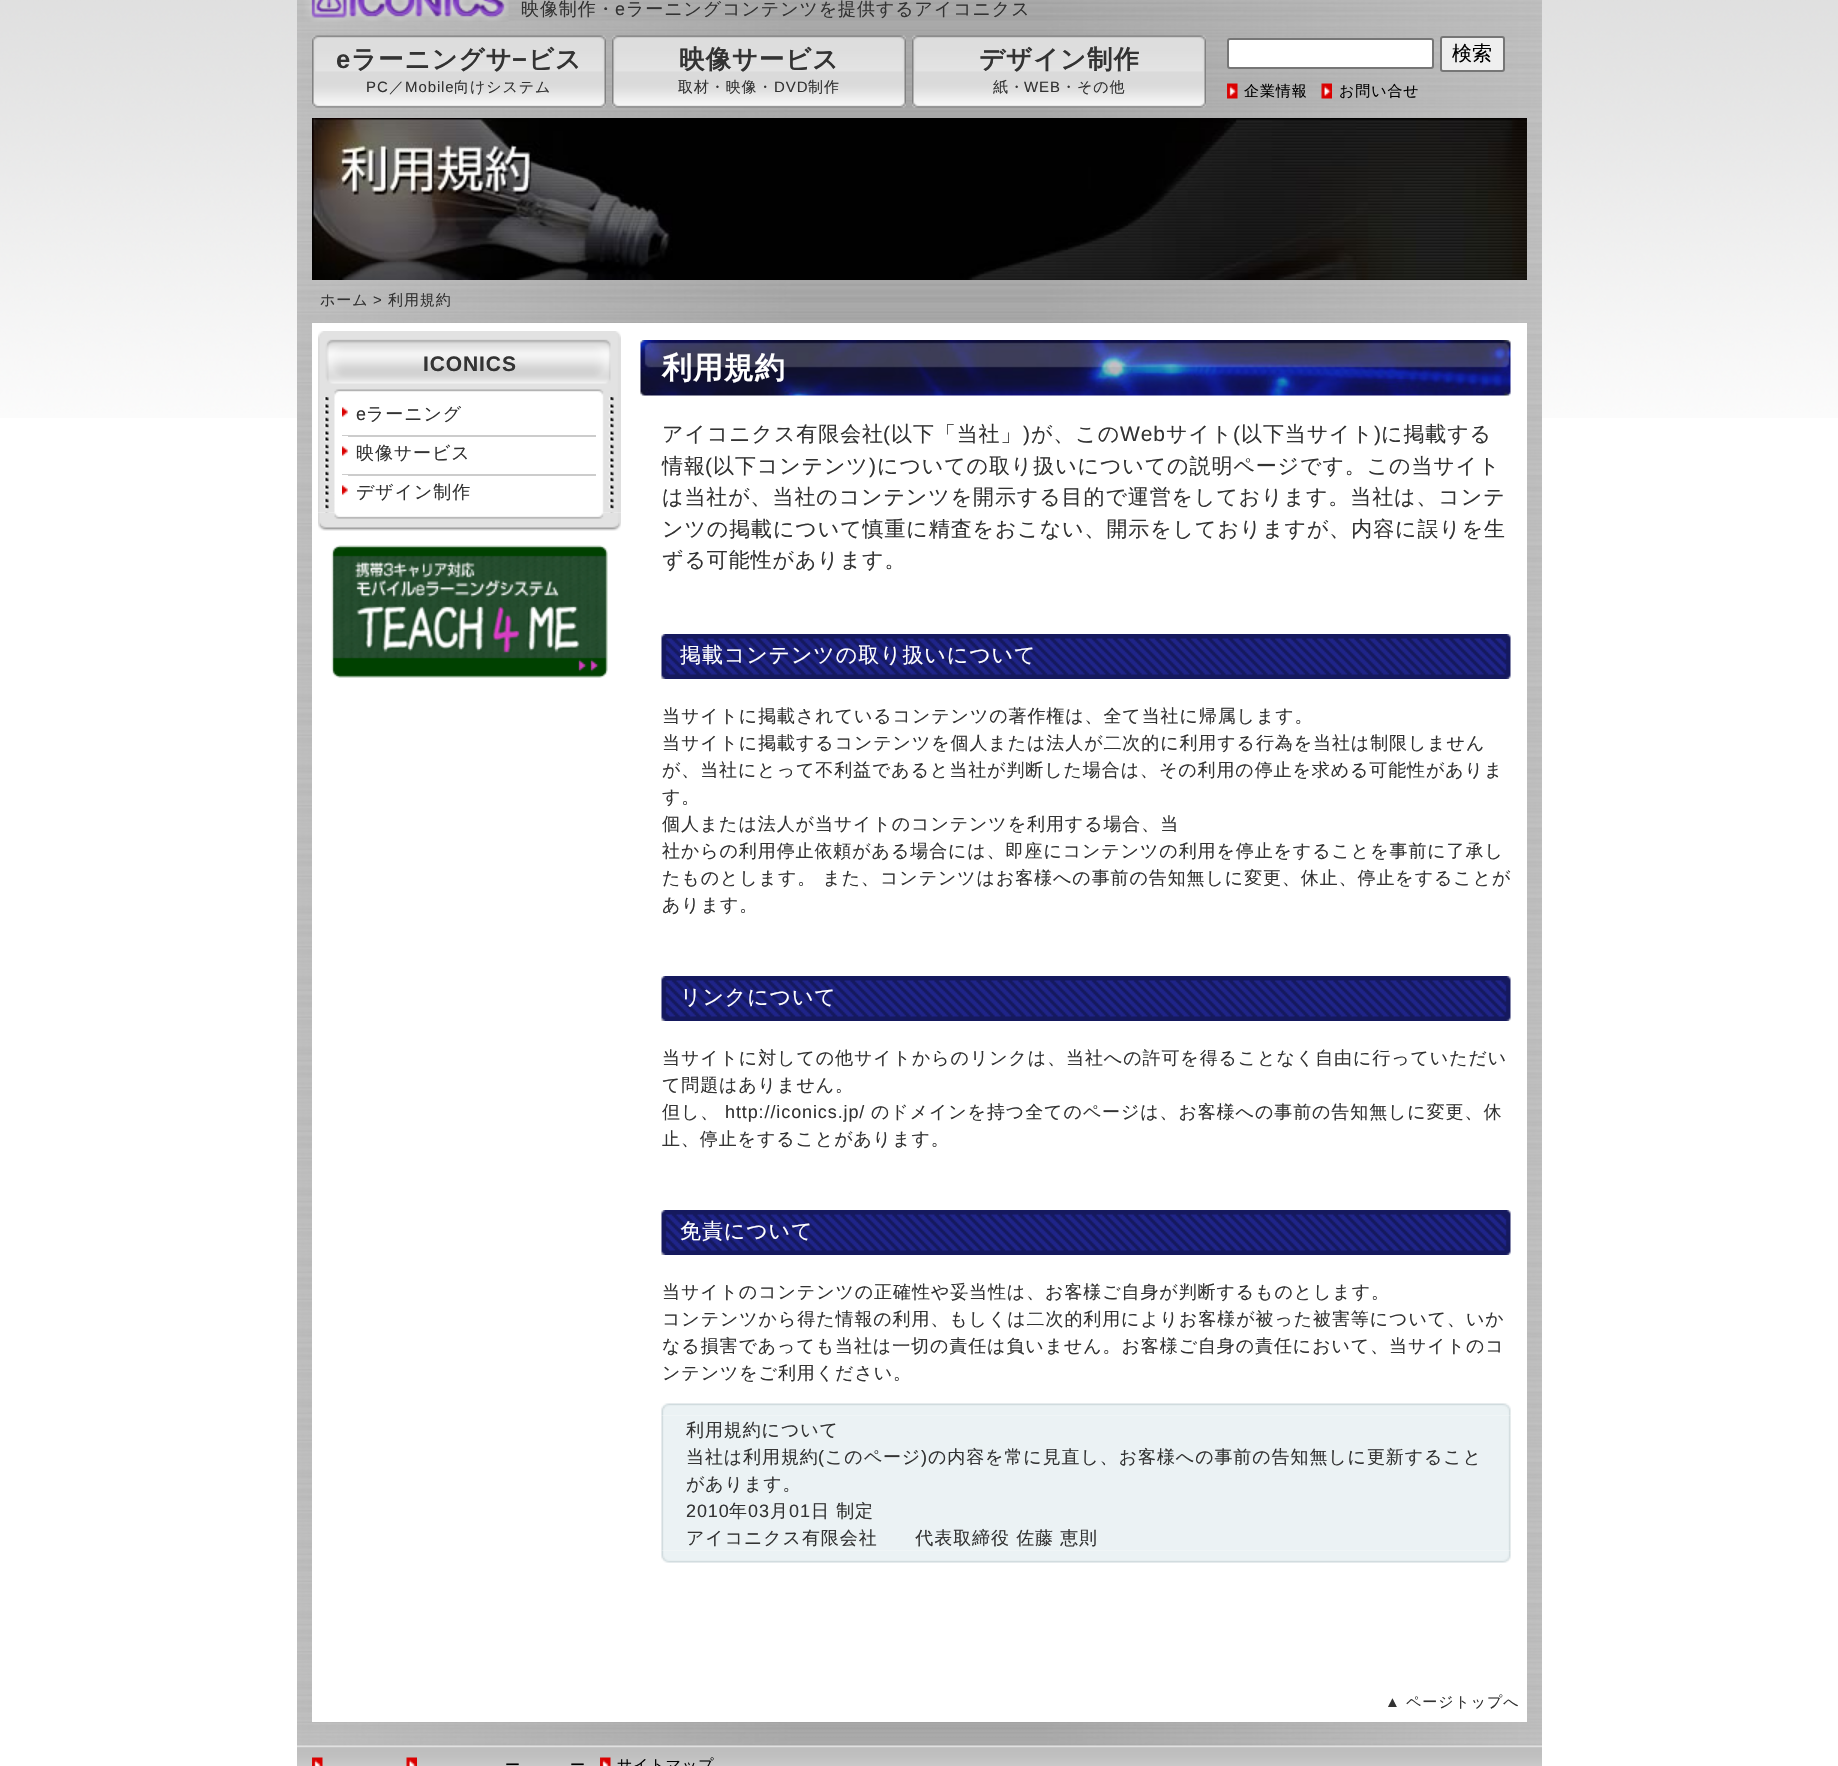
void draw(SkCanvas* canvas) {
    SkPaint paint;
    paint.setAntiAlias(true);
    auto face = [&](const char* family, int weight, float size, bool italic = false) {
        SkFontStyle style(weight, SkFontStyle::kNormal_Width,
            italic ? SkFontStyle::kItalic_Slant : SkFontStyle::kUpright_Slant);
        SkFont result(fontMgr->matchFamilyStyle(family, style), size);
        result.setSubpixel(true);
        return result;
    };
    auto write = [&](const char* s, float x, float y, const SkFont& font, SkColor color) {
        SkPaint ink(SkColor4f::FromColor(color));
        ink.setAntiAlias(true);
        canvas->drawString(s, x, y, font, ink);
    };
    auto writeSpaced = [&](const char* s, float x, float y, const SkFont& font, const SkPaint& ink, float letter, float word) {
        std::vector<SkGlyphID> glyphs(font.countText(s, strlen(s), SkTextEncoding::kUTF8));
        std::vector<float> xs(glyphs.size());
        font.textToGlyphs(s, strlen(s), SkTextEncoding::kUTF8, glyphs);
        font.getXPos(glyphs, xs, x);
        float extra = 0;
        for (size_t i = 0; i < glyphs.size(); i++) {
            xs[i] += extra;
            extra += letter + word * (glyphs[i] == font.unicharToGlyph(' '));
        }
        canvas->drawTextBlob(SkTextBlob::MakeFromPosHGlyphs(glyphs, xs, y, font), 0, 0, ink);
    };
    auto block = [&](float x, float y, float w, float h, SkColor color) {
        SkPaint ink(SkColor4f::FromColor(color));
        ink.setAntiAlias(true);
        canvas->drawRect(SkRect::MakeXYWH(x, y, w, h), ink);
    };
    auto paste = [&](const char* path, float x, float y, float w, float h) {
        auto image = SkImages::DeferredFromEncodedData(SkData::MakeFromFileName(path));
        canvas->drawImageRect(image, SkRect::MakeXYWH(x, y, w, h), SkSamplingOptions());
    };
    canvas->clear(SK_ColorWHITE);
    paste("pic1.png", 0, 0, 1838, 418);
    paste("pic2.png", 297, 0, 1245, 1746);
    paste("pic3.png", 297, 0, 212, 22);
    auto kFont1 = face("WenQuanYi Zen Hei", 500, 18);
    paint.setColor(SkColorSetRGB(51, 51, 51));
    writeSpaced("映像制作・", 521, 15, kFont1, paint, 0.9f, 0);
    auto kFont2 = face("Liberation Sans", 400, 18);
    writeSpaced("e", 615, 15, kFont2, paint, 0.9f, 0);
    writeSpaced("ラーニングコンテンツを提供するアイコニクス", 626, 15, kFont1, paint, 0.9f, 0);
    paste("pic4.png", 312, 35, 294, 73);
    auto kFont3 = face("Liberation Sans", 700, 25.5f);
    writeSpaced("e", 336, 68, kFont3, paint, 0.9f, 0);
    auto kFont4 = face("WenQuanYi Zen Hei", 700, 25.5f);
    writeSpaced("ラーニングサ", 351, 68, kFont4, paint, 0.9f, 0);
    writeSpaced("−", 512, 68, kFont3, paint, 0.9f, 0);
    writeSpaced("ビス", 528, 68, kFont4, paint, 0.9f, 0);
    auto kFont5 = face("Liberation Sans", 400, 15);
    writeSpaced("PC", 366, 92, kFont5, paint, 0.9f, 0);
    auto kFont6 = face("WenQuanYi Zen Hei", 500, 15);
    writeSpaced("／", 389, 92, kFont6, paint, 0.9f, 0);
    writeSpaced("Mobile", 405, 92, kFont5, paint, 0.9f, 0);
    writeSpaced("向けシステム", 454, 92, kFont6, paint, 0.9f, 0);
    paste("pic5.png", 612, 35, 294, 73);
    writeSpaced("映像サービス", 679, 68, kFont4, paint, 0.9f, 0);
    writeSpaced("取材・映像・", 678, 92, kFont6, paint, 0.9f, 0);
    writeSpaced("DVD", 774, 92, kFont5, paint, 0.9f, 0);
    writeSpaced("制作", 808, 92, kFont6, paint, 0.9f, 0);
    paste("pic6.png", 912, 35, 294, 73);
    writeSpaced("デザイン制作", 979, 68, kFont4, paint, 0.9f, 0);
    writeSpaced("紙・", 993, 92, kFont6, paint, 0.9f, 0);
    writeSpaced("WEB", 1024, 92, kFont5, paint, 0.9f, 0);
    writeSpaced("・その他", 1061, 92, kFont6, paint, 0.9f, 0);
    paint.setColor(SK_ColorWHITE);
    canvas->drawRoundRect(SkRect::MakeXYWH(1228, 39, 205, 29), 2, 2, paint);
    paint.setStyle(SkPaint::kStroke_Style);
    paint.setStrokeWidth(2);
    paint.setColor(SkColorSetRGB(118, 118, 118));
    canvas->drawRoundRect(SkRect::MakeXYWH(1228, 39, 205, 29), 2, 2, paint);
    paint.setStyle(SkPaint::kFill_Style);
    paint.setColor(SkColorSetRGB(239, 239, 239));
    canvas->drawRoundRect(SkRect::MakeXYWH(1441, 37, 63, 34), 2, 2, paint);
    paint.setStyle(SkPaint::kStroke_Style);
    paint.setColor(SkColorSetRGB(118, 118, 118));
    canvas->drawRoundRect(SkRect::MakeXYWH(1441, 37, 63, 34), 2, 2, paint);
    auto kFont7 = face("WenQuanYi Zen Hei", 500, 20);
    write("検索", 1452, 60, kFont7, SK_ColorBLACK);
    paste("pic7.png", 1227, 83, 11, 16);
    paint.setStyle(SkPaint::kFill_Style);
    paint.setColor(SK_ColorBLACK);
    writeSpaced("企業情報", 1244, 96, kFont6, paint, 0.9f, 0);
    paste("pic8.png", 1321, 83, 11, 16);
    writeSpaced("お問い合せ", 1339, 96, kFont6, paint, 0.9f, 0);
    paste("pic9.png", 312, 118, 1215, 162);
    paint.setColor(SkColorSetRGB(51, 51, 51));
    writeSpaced("ホーム", 320, 305, kFont6, paint, 0.9f, 0);
    writeSpaced(">", 373, 305, kFont5, paint, 0.9f, 0);
    writeSpaced("利用規約", 388, 305, kFont6, paint, 0.9f, 0);
    block(312, 323, 1215, 1399, SK_ColorWHITE);
    paste("pic10.png", 318, 331, 303, 66);
    auto kFont8 = face("Liberation Sans", 700, 21);
    writeSpaced("ICONICS", 423, 371, kFont8, paint, 0.9f, 0);
    paste("pic11.png", 318, 397, 303, 116);
    paste("pic12.png", 342, 406, 6, 12);
    block(342, 435, 254, 2, SkColorSetRGB(204, 204, 204));
    writeSpaced("e", 356, 420, kFont2, paint, 0.9f, 0);
    writeSpaced("ラーニング", 366, 420, kFont1, paint, 0.9f, 0);
    paste("pic13.png", 342, 436, 6, 21);
    block(342, 474, 254, 2, SkColorSetRGB(204, 204, 204));
    writeSpaced("映像サービス", 356, 459, kFont1, paint, 0.9f, 0);
    paste("pic13.png", 342, 475, 6, 21);
    writeSpaced("デザイン制作", 356, 498, kFont1, paint, 0.9f, 0);
    paste("pic14.png", 318, 512, 303, 19);
    paste("pic15.png", 331, 545, 277, 133);
    paste("pic16.png", 640, 340, 871, 56);
    auto kFont9 = face("WenQuanYi Zen Hei", 700, 30);
    paint.setColor(SK_ColorWHITE);
    writeSpaced("利用規約", 662, 378, kFont9, paint, 0.9f, 0);
    auto kFont10 = face("WenQuanYi Zen Hei", 500, 21);
    paint.setColor(SkColorSetRGB(51, 51, 51));
    writeSpaced("アイコニクス有限会社", 662, 441, kFont10, paint, 0.9f, 0);
    auto kFont11 = face("Liberation Sans", 400, 21);
    writeSpaced("(", 883, 441, kFont11, paint, 0.9f, 0);
    writeSpaced("以下「当社」", 891, 441, kFont10, paint, 0.9f, 0);
    writeSpaced(")", 1023, 441, kFont11, paint, 0.9f, 0);
    writeSpaced("が、この", 1031, 441, kFont10, paint, 0.9f, 0);
    writeSpaced("Web", 1120, 441, kFont11, paint, 0.9f, 0);
    writeSpaced("サイト", 1166, 441, kFont10, paint, 0.9f, 0);
    writeSpaced("(", 1233, 441, kFont11, paint, 0.9f, 0);
    writeSpaced("以下当サイト", 1241, 441, kFont10, paint, 0.9f, 0);
    writeSpaced(")", 1374, 441, kFont11, paint, 0.9f, 0);
    writeSpaced("に掲載する", 1381, 441, kFont10, paint, 0.9f, 0);
    writeSpaced("情報", 662, 473, kFont10, paint, 0.9f, 0);
    writeSpaced("(", 705, 473, kFont11, paint, 0.9f, 0);
    writeSpaced("以下コンテンツ", 713, 473, kFont10, paint, 0.9f, 0);
    writeSpaced(")", 869, 473, kFont11, paint, 0.9f, 0);
    writeSpaced("についての取り扱いについての説明ページです。この当サイト", 877, 473, kFont10, paint, 0.9f, 0);
    writeSpaced("は当社が、当社のコンテンツを開示する目的で運営をしております。当社は、コンテ", 662, 504, kFont10, paint, 0.9f, 0);
    writeSpaced("ンツの掲載について慎重に精査をおこない、開示をしておりますが、内容に誤りを生", 662, 536, kFont10, paint, 0.9f, 0);
    writeSpaced("ずる可能性があります。", 662, 567, kFont10, paint, 0.9f, 0);
    paste("pic17.png", 661, 634, 850, 45);
    paint.setColor(SK_ColorWHITE);
    writeSpaced("掲載コンテンツの取り扱いについて", 680, 662, kFont10, paint, 0.9f, 0);
    paint.setColor(SkColorSetRGB(51, 51, 51));
    writeSpaced("当サイトに掲載されているコンテンツの著作権は、全て当社に帰属します。", 662, 722, kFont1, paint, 0.9f, 0);
    writeSpaced("当サイトに掲載するコンテンツを個人または法人が二次的に利用する行為を当社は制限しません", 662, 749, kFont1, paint, 0.9f, 0);
    writeSpaced("が、当社にとって不利益であると当社が判断した場合は、その利用の停止を求める可能性がありま", 662, 776, kFont1, paint, 0.9f, 0);
    writeSpaced("す。", 662, 803, kFont1, paint, 0.9f, 0);
    writeSpaced("個人または法人が当サイトのコンテンツを利用する場合、当", 662, 830, kFont1, paint, 0.9f, 0);
    writeSpaced("社からの利用停止依頼がある場合には、即座にコンテンツの利用を停止をすることを事前に了承し", 662, 857, kFont1, paint, 0.9f, 0);
    writeSpaced("たものとします。 また、コンテンツはお客様への事前の告知無しに変更、休止、停止をすることが", 662, 884, kFont1, paint, 0.9f, 0);
    writeSpaced("あります。", 662, 911, kFont1, paint, 0.9f, 0);
    paste("pic17.png", 661, 976, 850, 45);
    paint.setColor(SK_ColorWHITE);
    writeSpaced("リンクについて", 680, 1004, kFont10, paint, 0.9f, 0);
    paint.setColor(SkColorSetRGB(51, 51, 51));
    writeSpaced("当サイトに対しての他サイトからのリンクは、当社への許可を得ることなく自由に行っていただい", 662, 1064, kFont1, paint, 0.9f, 0);
    writeSpaced("て問題はありません。", 662, 1091, kFont1, paint, 0.9f, 0);
    writeSpaced("但し、", 662, 1118, kFont1, paint, 0.9f, 0);
    writeSpaced("http://iconics.jp/", 725, 1118, kFont2, paint, 0.9f, 0);
    writeSpaced("のドメインを持つ全てのページは、お客様への事前の告知無しに変更、休", 871, 1118, kFont1, paint, 0.9f, 0);
    writeSpaced("止、停止をすることがあります。", 662, 1145, kFont1, paint, 0.9f, 0);
    paste("pic17.png", 661, 1210, 850, 45);
    paint.setColor(SK_ColorWHITE);
    writeSpaced("免責について", 680, 1238, kFont10, paint, 0.9f, 0);
    paint.setColor(SkColorSetRGB(51, 51, 51));
    writeSpaced("当サイトのコンテンツの正確性や妥当性は、お客様ご自身が判断するものとします。", 662, 1298, kFont1, paint, 0.9f, 0);
    writeSpaced("コンテンツから得た情報の利用、もしくは二次的利用によりお客様が被った被害等について、いか", 662, 1325, kFont1, paint, 0.9f, 0);
    writeSpaced("なる損害であっても当社は一切の責任は負いません。お客様ご自身の責任において、当サイトのコ", 662, 1352, kFont1, paint, 0.9f, 0);
    writeSpaced("ンテンツをご利用ください。", 662, 1379, kFont1, paint, 0.9f, 0);
    paste("pic18.png", 661, 1550, 850, 13);
    paste("pic19.png", 661, 1403, 850, 13);
    paste("pic20.png", 661, 1415, 850, 136);
    writeSpaced("利用規約について", 686, 1436, kFont1, paint, 0.9f, 0);
    writeSpaced("当社は利用規約", 686, 1463, kFont1, paint, 0.9f, 0);
    writeSpaced("(", 818, 1463, kFont2, paint, 0.9f, 0);
    writeSpaced("このページ", 825, 1463, kFont1, paint, 0.9f, 0);
    writeSpaced(")", 921, 1463, kFont2, paint, 0.9f, 0);
    writeSpaced("の内容を常に見直し、お客様への事前の告知無しに更新すること", 928, 1463, kFont1, paint, 0.9f, 0);
    writeSpaced("があります。", 686, 1490, kFont1, paint, 0.9f, 0);
    writeSpaced("2010", 686, 1517, kFont2, paint, 0.9f, 0);
    writeSpaced("年", 729, 1517, kFont1, paint, 0.9f, 0);
    writeSpaced("03", 748, 1517, kFont2, paint, 0.9f, 0);
    writeSpaced("月", 770, 1517, kFont1, paint, 0.9f, 0);
    writeSpaced("01", 789, 1517, kFont2, paint, 0.9f, 0);
    writeSpaced("日 制定", 811, 1517, kFont1, paint, 0.9f, 0);
    writeSpaced("アイコニクス有限会社　　代表取締役 佐藤 恵則", 686, 1544, kFont1, paint, 0.9f, 0);
    writeSpaced("▲", 1385, 1707, kFont5, paint, 0.9f, 0);
    writeSpaced("ページトップへ", 1406, 1707, kFont6, paint, 0.9f, 0);
    paste("pic21.png", 297, 1745, 1245, 21);
    paste("pic22.png", 312, 1757, 11, 9);
    paste("pic23.png", 406, 1757, 11, 9);
    paint.setColor(SK_ColorBLACK);
    writeSpaced("ー", 505, 1770, kFont6, paint, 0.9f, 0);
    writeSpaced("ー", 570, 1770, kFont6, paint, 0.9f, 0);
    paste("pic22.png", 600, 1757, 11, 9);
    writeSpaced("サイトマップ", 617, 1770, kFont6, paint, 0.9f, 0);
}
